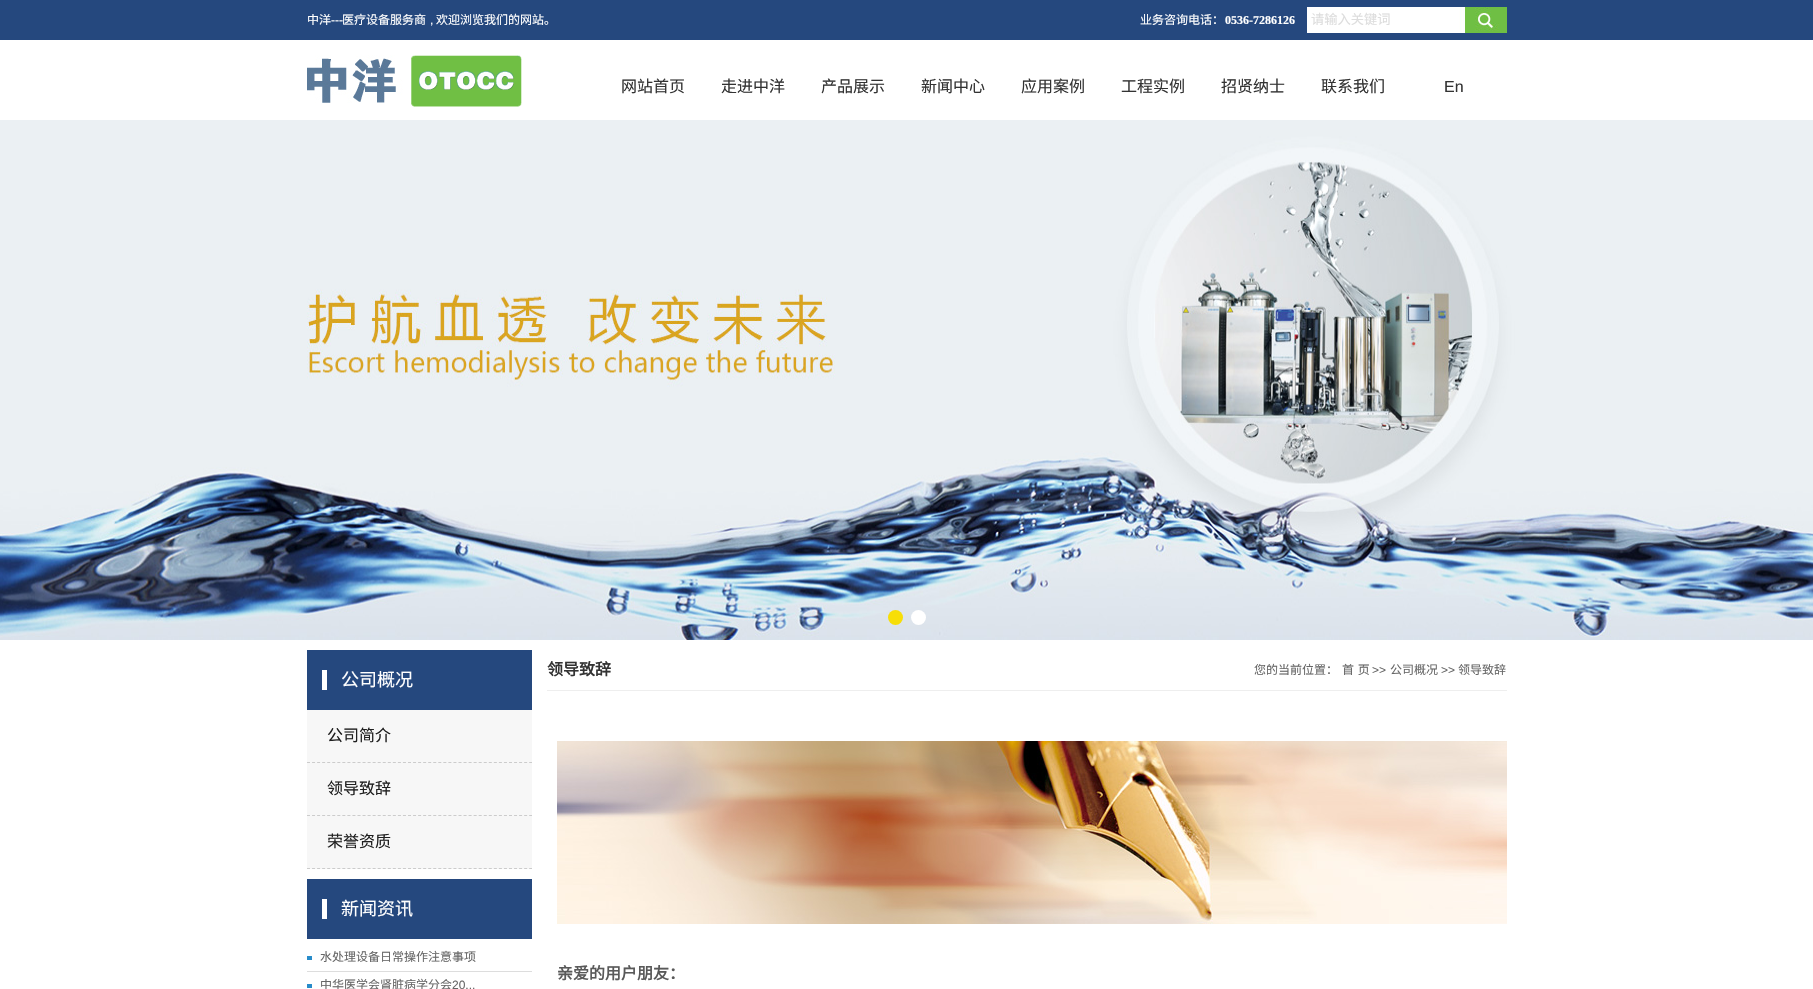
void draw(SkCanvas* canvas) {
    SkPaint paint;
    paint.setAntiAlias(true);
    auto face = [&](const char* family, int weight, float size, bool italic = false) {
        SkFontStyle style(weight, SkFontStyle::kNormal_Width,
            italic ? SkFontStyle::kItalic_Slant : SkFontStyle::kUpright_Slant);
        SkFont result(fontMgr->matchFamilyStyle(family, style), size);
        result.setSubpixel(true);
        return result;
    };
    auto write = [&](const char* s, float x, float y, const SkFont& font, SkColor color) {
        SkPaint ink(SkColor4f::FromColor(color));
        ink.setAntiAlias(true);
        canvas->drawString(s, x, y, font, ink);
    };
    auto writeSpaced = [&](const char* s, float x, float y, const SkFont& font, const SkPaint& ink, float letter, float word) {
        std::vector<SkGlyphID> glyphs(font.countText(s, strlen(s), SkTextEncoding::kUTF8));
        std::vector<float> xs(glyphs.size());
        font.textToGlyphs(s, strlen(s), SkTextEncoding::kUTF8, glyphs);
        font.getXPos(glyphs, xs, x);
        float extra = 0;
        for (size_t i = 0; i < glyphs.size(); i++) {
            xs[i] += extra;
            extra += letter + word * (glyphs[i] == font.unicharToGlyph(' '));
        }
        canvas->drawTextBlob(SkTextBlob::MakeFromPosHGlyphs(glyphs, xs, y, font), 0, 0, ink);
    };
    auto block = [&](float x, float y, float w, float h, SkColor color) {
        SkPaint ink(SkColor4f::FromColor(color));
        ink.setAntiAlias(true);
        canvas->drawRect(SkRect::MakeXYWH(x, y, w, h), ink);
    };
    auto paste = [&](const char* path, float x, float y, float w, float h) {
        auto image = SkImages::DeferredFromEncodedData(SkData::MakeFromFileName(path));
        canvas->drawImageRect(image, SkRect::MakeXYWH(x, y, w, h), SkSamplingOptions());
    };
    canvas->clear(SK_ColorWHITE);
    block(0, 0, 1813, 40, SkColorSetRGB(37, 72, 126));
    auto kFont1 = face("Noto Sans CJK SC", 400, 12);
    write("中洋", 307, 24, kFont1, SK_ColorWHITE);
    auto kFont2 = face("Liberation Sans", 400, 12);
    write("---", 331, 24, kFont2, SK_ColorWHITE);
    write("医疗设备服务商", 342, 24, kFont1, SK_ColorWHITE);
    write("欢迎浏览我们的网站。", 436, 24, kFont1, SK_ColorWHITE);
    write(",", 430, 24, kFont2, SK_ColorWHITE);
    write("业务咨询电话：", 1140, 24, kFont1, SK_ColorWHITE);
    auto kFont3 = face("Liberation Serif", 700, 12);
    write("0536-7286126", 1225, 24, kFont3, SK_ColorWHITE);
    paste("pic1.png", 1307, 7, 200, 26);
    auto kFont4 = face("Noto Sans CJK SC", 400, 13.25f);
    write("请输入关键词", 1311, 24, kFont4, SkColorSetRGB(221, 221, 221));
    paste("pic2.png", 307, 55, 215, 52);
    auto kFont5 = face("Noto Sans CJK SC", 400, 16);
    write("网站首页", 621, 92, kFont5, SkColorSetRGB(51, 51, 51));
    write("走进中洋", 721, 92, kFont5, SkColorSetRGB(51, 51, 51));
    write("产品展示", 821, 92, kFont5, SkColorSetRGB(51, 51, 51));
    write("新闻中心", 921, 92, kFont5, SkColorSetRGB(51, 51, 51));
    write("应用案例", 1021, 92, kFont5, SkColorSetRGB(51, 51, 51));
    write("工程实例", 1121, 92, kFont5, SkColorSetRGB(51, 51, 51));
    write("招贤纳士", 1221, 92, kFont5, SkColorSetRGB(51, 51, 51));
    write("联系我们", 1321, 92, kFont5, SkColorSetRGB(51, 51, 51));
    auto kFont6 = face("Liberation Sans", 400, 16);
    write("En", 1444, 92, kFont6, SkColorSetRGB(51, 51, 51));
    paste("pic3.png", 0, 120, 1813, 520);
    paint.setColor(SkColorSetRGB(247, 222, 7));
    canvas->drawCircle(895.5f, 617.5f, 7.5f, paint);
    paint.setColor(SK_ColorWHITE);
    canvas->drawCircle(918.5f, 617.5f, 7.5f, paint);
    block(307, 650, 225, 60, SkColorSetRGB(37, 72, 126));
    block(322, 670, 5, 20, SK_ColorWHITE);
    auto kFont7 = face("Noto Sans CJK SC", 400, 18);
    write("公司概况", 341, 686, kFont7, SK_ColorWHITE);
    block(307, 710, 225, 159, SkColorSetRGB(247, 247, 247));
    paint.setStyle(SkPaint::kStroke_Style);
    paint.setStrokeWidth(1);
    paint.setColor(SkColorSetRGB(204, 204, 204));
    paint.setPathEffect(SkDashPathEffect::Make({{3, 2.05f}}, 0));
    canvas->drawPath(SkPathBuilder().moveTo(307, 762.5f).lineTo(532, 762.5f).detach(), paint);
    paint.setPathEffect(nullptr);
    write("公司简介", 327, 741, kFont5, SkColorSetRGB(31, 31, 31));
    paint.setPathEffect(SkDashPathEffect::Make({{3, 2.05f}}, 0));
    canvas->drawPath(SkPathBuilder().moveTo(307, 815.5f).lineTo(532, 815.5f).detach(), paint);
    paint.setPathEffect(nullptr);
    write("领导致辞", 327, 794, kFont5, SkColorSetRGB(31, 31, 31));
    paint.setPathEffect(SkDashPathEffect::Make({{3, 2.05f}}, 0));
    canvas->drawPath(SkPathBuilder().moveTo(307, 868.5f).lineTo(532, 868.5f).detach(), paint);
    paint.setPathEffect(nullptr);
    write("荣誉资质", 327, 847, kFont5, SkColorSetRGB(31, 31, 31));
    block(307, 879, 225, 60, SkColorSetRGB(37, 72, 126));
    block(322, 899, 5, 20, SK_ColorWHITE);
    write("新闻资讯", 341, 915, kFont7, SK_ColorWHITE);
    paste("pic4.png", 307, 956, 5, 4);
    block(307, 971, 225, 1, SkColorSetRGB(221, 221, 221));
    write("水处理设备日常操作注意事项", 320, 961, kFont1, SkColorSetRGB(102, 102, 102));
    paste("pic4.png", 307, 984, 5, 4);
    write("中华医学会肾脏病学分会", 320, 989, kFont1, SkColorSetRGB(102, 102, 102));
    write("20...", 452, 989, kFont2, SkColorSetRGB(102, 102, 102));
    block(547, 690, 960, 1, SkColorSetRGB(238, 238, 238));
    auto kFont8 = face("Noto Sans CJK SC", 700, 16);
    write("领导致辞", 547, 675, kFont8, SkColorSetRGB(51, 51, 51));
    write("您的当前位置：", 1254, 674, kFont1, SkColorSetRGB(102, 102, 102));
    paint.setStyle(SkPaint::kFill_Style);
    paint.setColor(SkColorSetRGB(102, 102, 102));
    writeSpaced("首 页", 1342, 674, kFont1, paint, 0, 1);
    write(">>", 1372, 674, kFont2, SkColorSetRGB(102, 102, 102));
    write("公司概况", 1390, 674, kFont1, SkColorSetRGB(102, 102, 102));
    write(">>", 1441, 674, kFont2, SkColorSetRGB(102, 102, 102));
    write("领导致辞", 1458, 674, kFont1, SkColorSetRGB(102, 102, 102));
    paste("pic5.png", 557, 741, 950, 183);
    write("亲爱的用户朋友：", 557, 979, kFont8, SkColorSetRGB(89, 89, 89));
}
